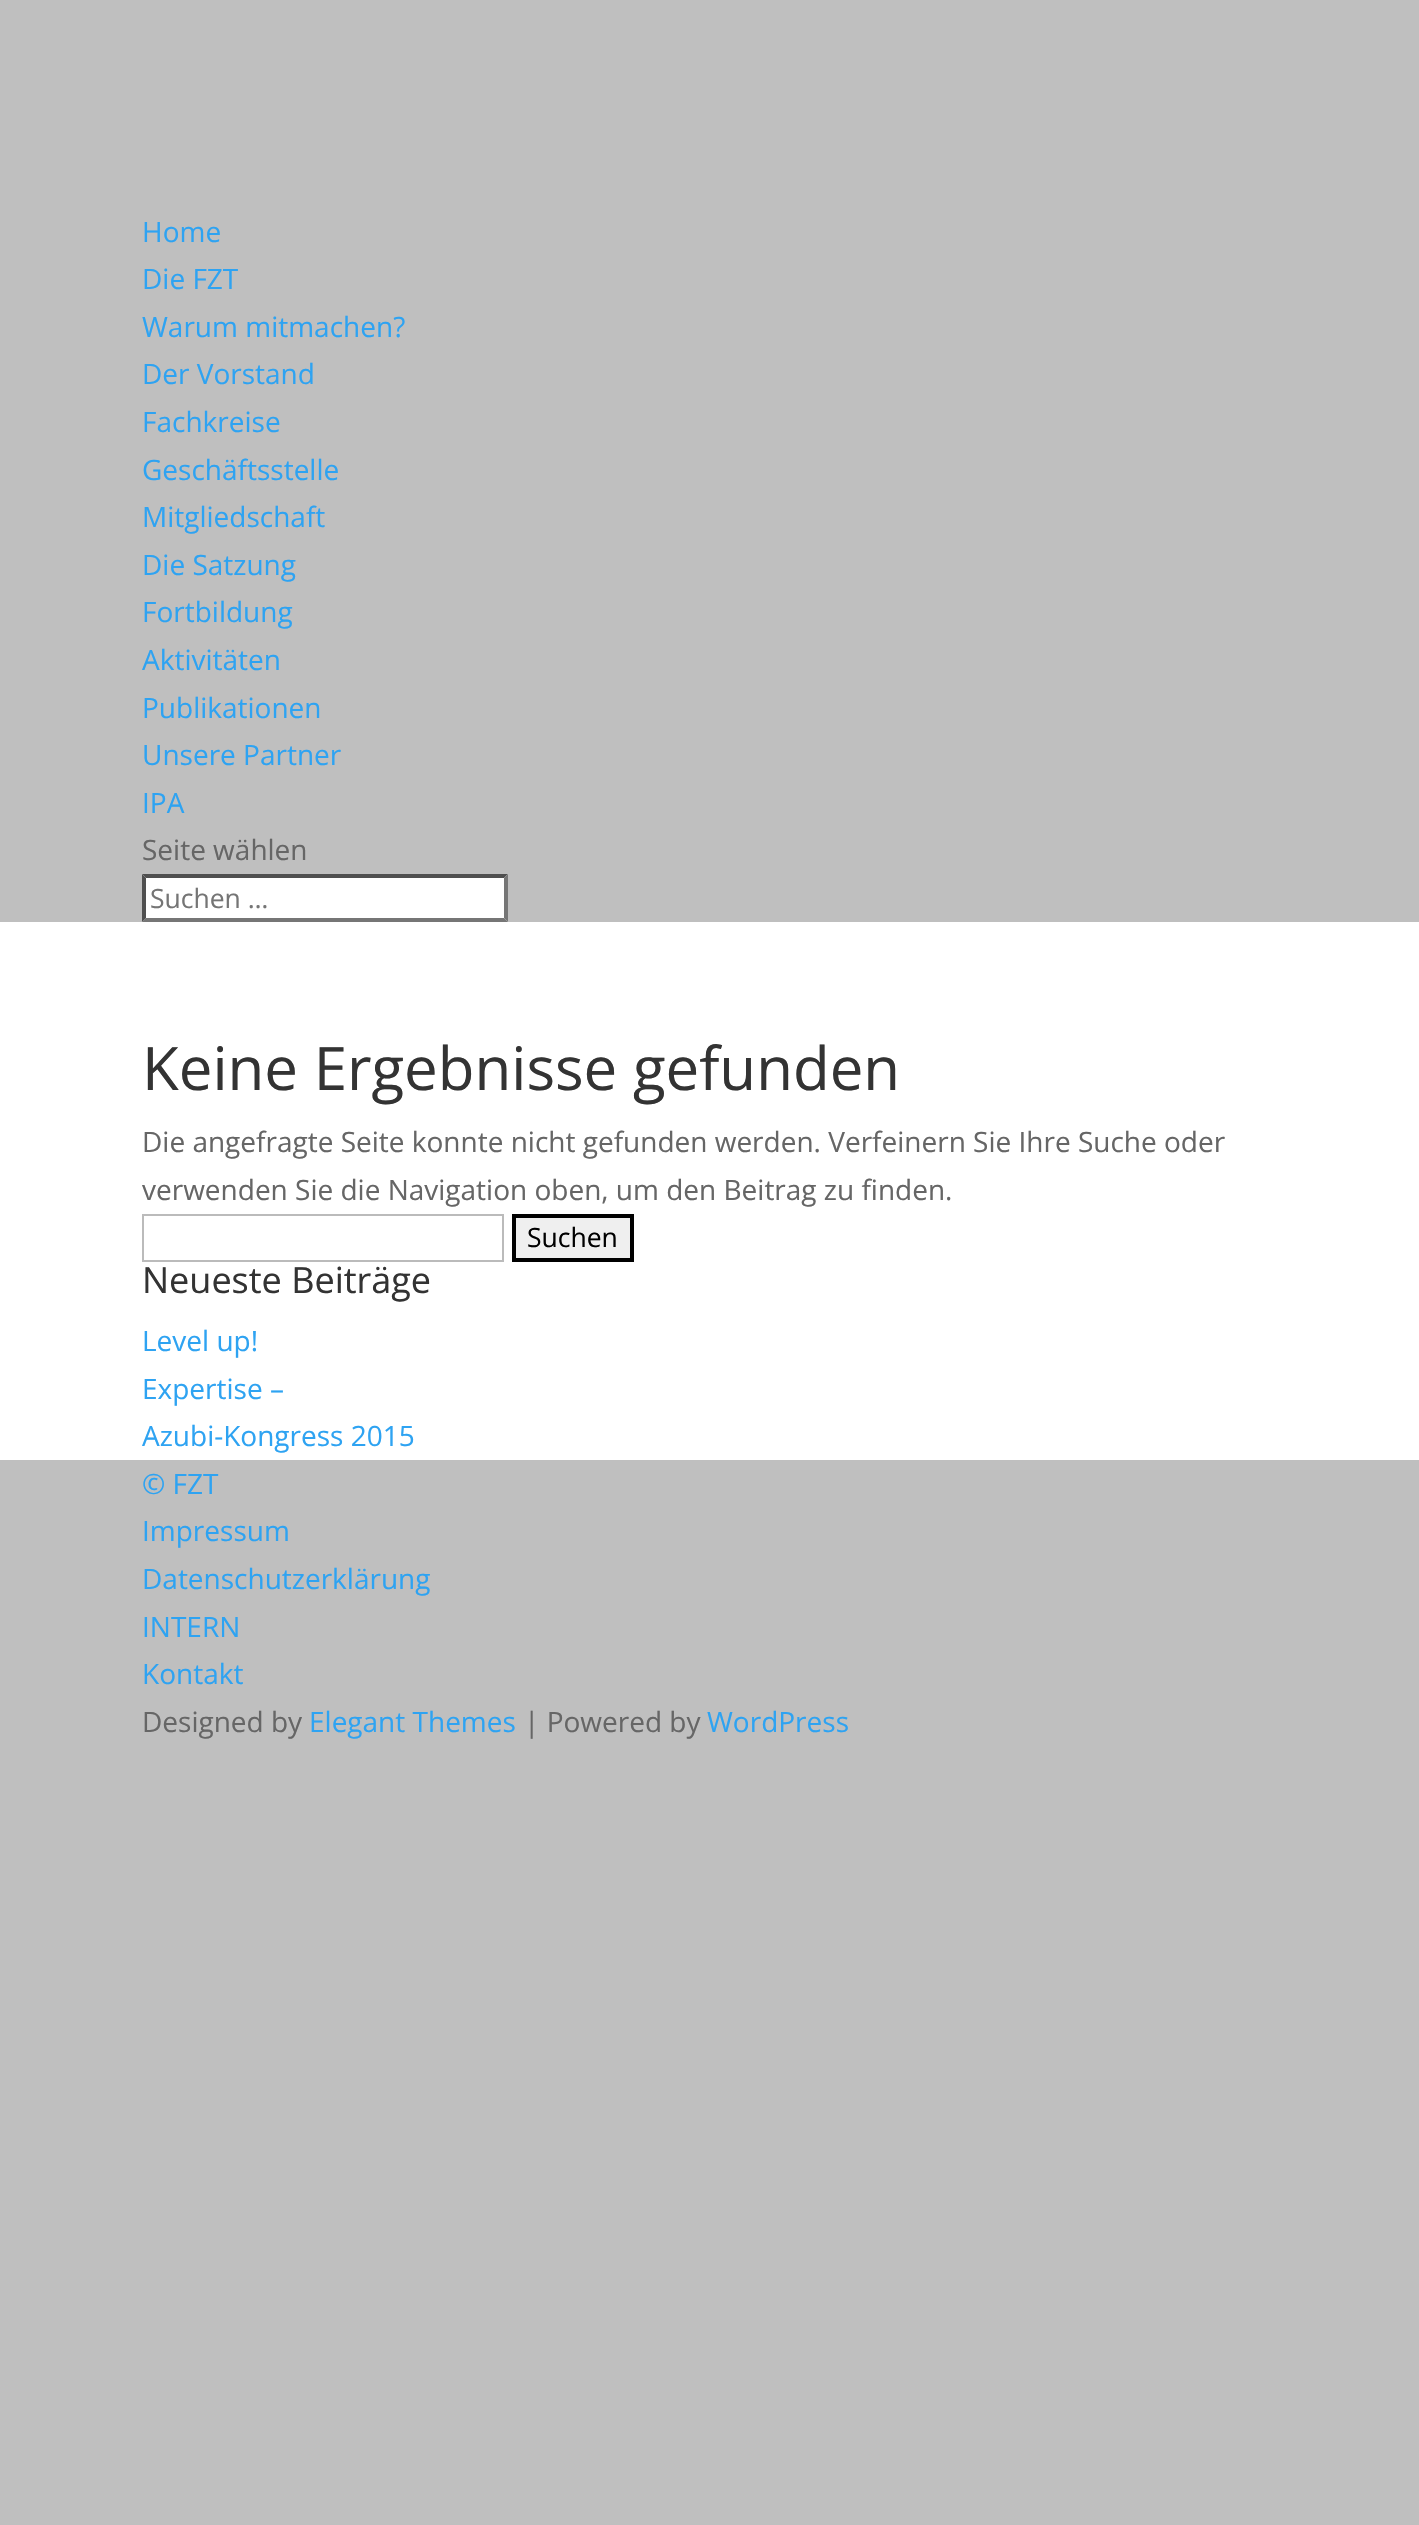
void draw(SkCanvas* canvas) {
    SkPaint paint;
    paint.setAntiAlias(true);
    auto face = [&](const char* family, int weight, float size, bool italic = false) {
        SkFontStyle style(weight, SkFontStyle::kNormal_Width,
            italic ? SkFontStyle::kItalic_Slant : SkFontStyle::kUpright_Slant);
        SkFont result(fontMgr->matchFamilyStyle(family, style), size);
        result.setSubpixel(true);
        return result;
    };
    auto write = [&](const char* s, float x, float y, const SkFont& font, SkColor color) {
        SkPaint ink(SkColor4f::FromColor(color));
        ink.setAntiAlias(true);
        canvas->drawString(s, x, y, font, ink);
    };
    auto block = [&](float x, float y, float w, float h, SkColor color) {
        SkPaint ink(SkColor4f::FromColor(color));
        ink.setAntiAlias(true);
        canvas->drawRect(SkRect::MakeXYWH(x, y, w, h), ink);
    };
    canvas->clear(SkColorSetRGB(191, 191, 191));
    auto kFont1 = face("Open Sans", 400, 28);
    write("Home", 142, 242, kFont1, SkColorSetRGB(46, 163, 242));
    write("Die FZT", 142, 289, kFont1, SkColorSetRGB(46, 163, 242));
    write("Warum mitmachen?", 142, 337, kFont1, SkColorSetRGB(46, 163, 242));
    write("Der Vorstand", 142, 384, kFont1, SkColorSetRGB(46, 163, 242));
    write("Fachkreise", 142, 432, kFont1, SkColorSetRGB(46, 163, 242));
    write("Geschäftsstelle", 142, 480, kFont1, SkColorSetRGB(46, 163, 242));
    write("Mitgliedschaft", 142, 527, kFont1, SkColorSetRGB(46, 163, 242));
    write("Die Satzung", 142, 575, kFont1, SkColorSetRGB(46, 163, 242));
    write("Fortbildung", 142, 622, kFont1, SkColorSetRGB(46, 163, 242));
    write("Aktivitäten", 142, 670, kFont1, SkColorSetRGB(46, 163, 242));
    write("Publikationen", 142, 718, kFont1, SkColorSetRGB(46, 163, 242));
    write("Unsere Partner", 142, 765, kFont1, SkColorSetRGB(46, 163, 242));
    write("IPA", 142, 813, kFont1, SkColorSetRGB(46, 163, 242));
    write("Seite wählen", 142, 860, kFont1, SkColorSetRGB(102, 102, 102));
    block(142, 874, 366, 48, SK_ColorWHITE);
    paint.setColor(SkColorSetRGB(79, 79, 79));
    canvas->drawPath(SkPathBuilder().moveTo(142, 874).lineTo(508, 874).lineTo(504, 878).lineTo(146, 878).close().detach(), paint);
    paint.setColor(SkColorSetRGB(118, 118, 118));
    canvas->drawPath(SkPathBuilder().moveTo(508, 874).lineTo(508, 922).lineTo(504, 918).lineTo(504, 878).close().detach(), paint);
    canvas->drawPath(SkPathBuilder().moveTo(508, 922).lineTo(142, 922).lineTo(146, 918).lineTo(504, 918).close().detach(), paint);
    paint.setColor(SkColorSetRGB(79, 79, 79));
    canvas->drawPath(SkPathBuilder().moveTo(142, 922).lineTo(142, 874).lineTo(146, 878).lineTo(146, 918).close().detach(), paint);
    auto kFont2 = face("Open Sans", 400, 26.5f);
    write("Suchen …", 150, 908, kFont2, SkColorSetRGB(117, 117, 117));
    block(0, 922, 1419, 538, SK_ColorWHITE);
    auto kFont3 = face("Open Sans", 400, 60);
    write("Keine Ergebnisse gefunden", 142, 1090, kFont3, SkColorSetRGB(51, 51, 51));
    write("Die angefragte Seite konnte nicht gefunden werden. Verfeinern Sie Ihre Suche oder", 142, 1152, kFont1, SkColorSetRGB(102, 102, 102));
    write("verwenden Sie die Navigation oben, um den Beitrag zu finden.", 142, 1200, kFont1, SkColorSetRGB(102, 102, 102));
    paint.setStyle(SkPaint::kStroke_Style);
    paint.setStrokeWidth(2);
    paint.setColor(SkColorSetRGB(187, 187, 187));
    canvas->drawRect(SkRect::MakeXYWH(143, 1215, 360, 46), paint);
    paint.setStyle(SkPaint::kFill_Style);
    paint.setColor(SkColorSetRGB(239, 239, 239));
    canvas->drawRect(SkRect::MakeXYWH(514, 1216, 118, 44), paint);
    paint.setStyle(SkPaint::kStroke_Style);
    paint.setStrokeWidth(4);
    paint.setColor(SK_ColorBLACK);
    canvas->drawRect(SkRect::MakeXYWH(514, 1216, 118, 44), paint);
    write("Suchen", 527, 1247, kFont2, SK_ColorBLACK);
    auto kFont4 = face("Open Sans", 400, 36);
    write("Neueste Beiträge", 142, 1293, kFont4, SkColorSetRGB(51, 51, 51));
    write("Level up!", 142, 1351, kFont1, SkColorSetRGB(46, 163, 242));
    write("Expertise –", 142, 1399, kFont1, SkColorSetRGB(46, 163, 242));
    write("Azubi-Kongress 2015", 142, 1446, kFont1, SkColorSetRGB(46, 163, 242));
    write("© FZT", 142, 1494, kFont1, SkColorSetRGB(46, 163, 242));
    write("Impressum", 142, 1541, kFont1, SkColorSetRGB(46, 163, 242));
    write("Datenschutzerklärung", 142, 1589, kFont1, SkColorSetRGB(46, 163, 242));
    write("INTERN", 142, 1637, kFont1, SkColorSetRGB(46, 163, 242));
    write("Kontakt", 142, 1684, kFont1, SkColorSetRGB(46, 163, 242));
    write("Designed by", 142, 1732, kFont1, SkColorSetRGB(102, 102, 102));
    write("Elegant Themes", 309, 1732, kFont1, SkColorSetRGB(46, 163, 242));
    write("| Powered by", 524, 1732, kFont1, SkColorSetRGB(102, 102, 102));
    write("WordPress", 707, 1732, kFont1, SkColorSetRGB(46, 163, 242));
}
